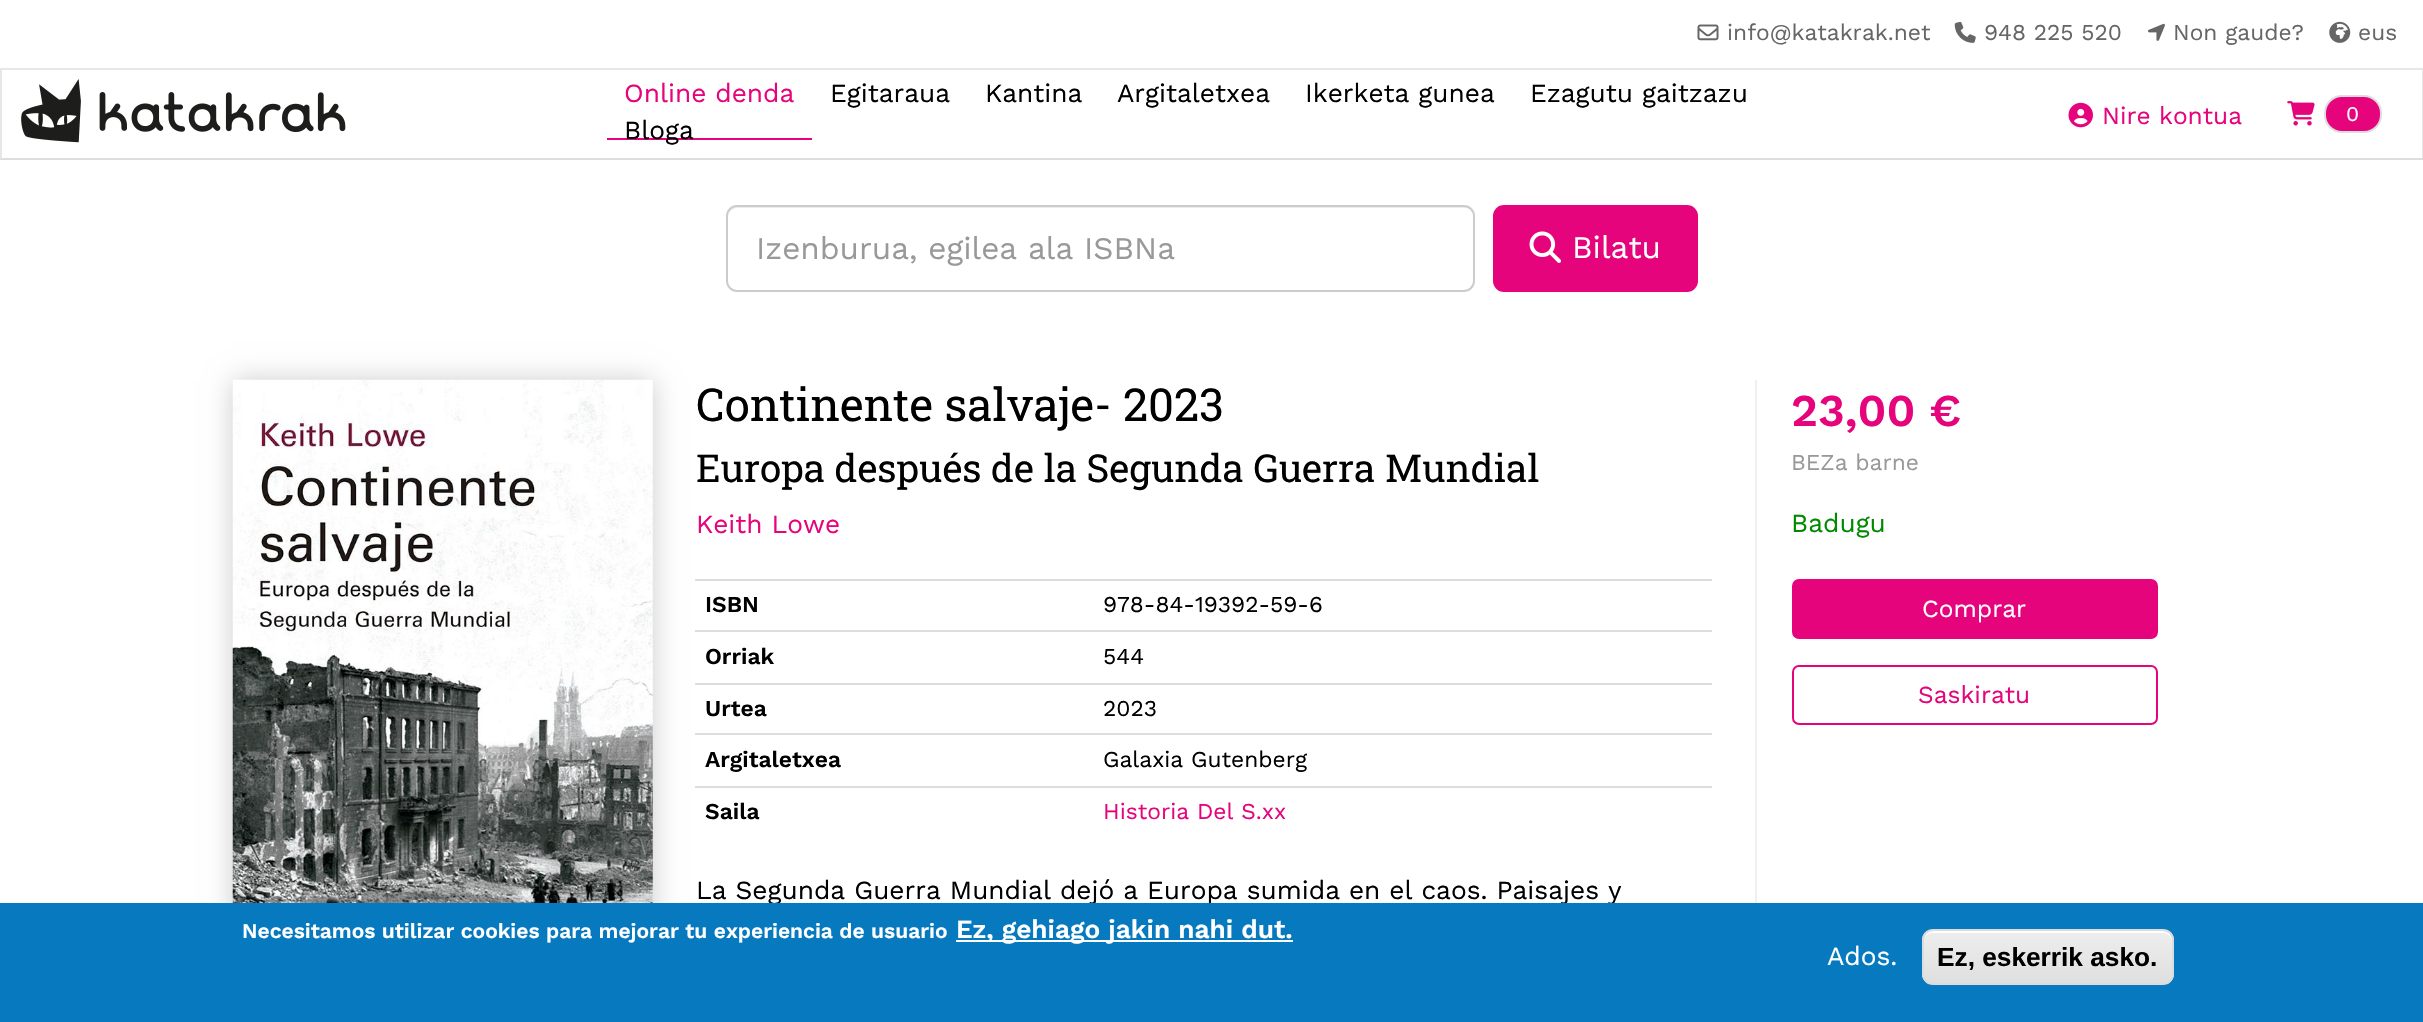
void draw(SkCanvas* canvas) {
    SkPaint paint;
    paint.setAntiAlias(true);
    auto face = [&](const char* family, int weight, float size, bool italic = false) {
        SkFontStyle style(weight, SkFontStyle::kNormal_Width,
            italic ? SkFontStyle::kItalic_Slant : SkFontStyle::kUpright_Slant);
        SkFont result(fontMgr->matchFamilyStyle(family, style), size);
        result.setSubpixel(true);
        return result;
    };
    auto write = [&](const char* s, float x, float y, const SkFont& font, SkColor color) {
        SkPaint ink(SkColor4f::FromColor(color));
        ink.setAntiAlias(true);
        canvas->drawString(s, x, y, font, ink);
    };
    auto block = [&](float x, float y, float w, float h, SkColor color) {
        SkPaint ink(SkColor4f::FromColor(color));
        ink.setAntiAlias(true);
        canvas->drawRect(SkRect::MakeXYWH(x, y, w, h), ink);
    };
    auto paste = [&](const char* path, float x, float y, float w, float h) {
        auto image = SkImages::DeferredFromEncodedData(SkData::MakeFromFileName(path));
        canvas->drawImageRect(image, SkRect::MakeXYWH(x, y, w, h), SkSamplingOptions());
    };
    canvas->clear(SK_ColorWHITE);
    paste("pic1.png", 1697, 24, 22, 17);
    auto kFont1 = face("Work Sans", 400, 22.75f);
    write("info@katakrak.net", 1727, 40, kFont1, SkColorSetRGB(102, 102, 102));
    paste("pic2.png", 1954, 21, 22, 22);
    write("948 225 520", 1984, 40, kFont1, SkColorSetRGB(102, 102, 102));
    paste("pic3.png", 2148, 23, 17, 18);
    write("Non gaude?", 2173, 40, kFont1, SkColorSetRGB(102, 102, 102));
    paste("pic4.png", 2329, 21, 22, 22);
    write("eus", 2358, 40, kFont1, SkColorSetRGB(102, 102, 102));
    block(0, 68, 2423, 2, SkColorSetRGB(231, 231, 231));
    block(2422, 68, 1, 91, SkColorSetRGB(231, 231, 231));
    block(0, 158, 2423, 2, SkColorSetRGB(221, 221, 221));
    block(0, 68, 2, 91, SkColorSetRGB(231, 231, 231));
    paste("pic5.png", 21, 79, 325, 64);
    auto kFont2 = face("Work Sans", 400, 26.25f);
    write("Online denda", 624, 102, kFont2, SkColorSetRGB(230, 4, 124));
    block(607, 138, 205, 2, SkColorSetRGB(230, 4, 124));
    write("Egitaraua", 830, 102, kFont2, SK_ColorBLACK);
    write("Kantina", 985, 102, kFont2, SK_ColorBLACK);
    write("Argitaletxea", 1117, 102, kFont2, SK_ColorBLACK);
    write("Ikerketa gunea", 1305, 102, kFont2, SK_ColorBLACK);
    write("Ezagutu gaitzazu", 1530, 102, kFont2, SK_ColorBLACK);
    write("Bloga", 624, 139, kFont2, SK_ColorBLACK);
    paste("pic6.png", 2068, 102, 25, 26);
    auto kFont3 = face("Work Sans", 400, 24.5f);
    write("Nire kontua", 2102, 124, kFont3, SkColorSetRGB(230, 4, 124));
    paste("pic7.png", 2287, 101, 28, 25);
    paint.setColor(SkColorSetRGB(230, 4, 124));
    canvas->drawRoundRect(SkRect::MakeXYWH(2325, 96, 56, 36), 17, 17, paint);
    paint.setStyle(SkPaint::kStroke_Style);
    paint.setStrokeWidth(2);
    paint.setColor(SkColorSetRGB(221, 221, 221));
    canvas->drawRoundRect(SkRect::MakeXYWH(2325, 96, 56, 36), 17, 17, paint);
    auto kFont4 = face("Work Sans", 400, 21);
    write("0", 2346, 121, kFont4, SK_ColorWHITE);
    paint.setStyle(SkPaint::kFill_Style);
    paint.setColor(SkColorSetRGB(236, 236, 236));
    canvas->drawPath(SkPathBuilder().moveTo(737, 208).lineTo(1465, 208).cubicTo(1470, 208, 1474, 212, 1474, 217).lineTo(1474, 216).cubicTo(1474, 211, 1470, 207, 1465, 207).lineTo(737, 207).cubicTo(732, 207, 728, 211, 728, 216).lineTo(728, 217).cubicTo(728, 212, 732, 208, 737, 208).close().detach(), paint);
    paint.setStyle(SkPaint::kStroke_Style);
    paint.setColor(SkColorSetRGB(204, 204, 204));
    canvas->drawRoundRect(SkRect::MakeXYWH(727, 206, 747, 85), 10, 10, paint);
    auto kFont5 = face("Work Sans", 400, 31.5f);
    write("Izenburua, egilea ala ISBNa", 756, 259, kFont5, SkColorSetRGB(153, 153, 153));
    paint.setStyle(SkPaint::kFill_Style);
    paint.setColor(SkColorSetRGB(230, 4, 124));
    canvas->drawRoundRect(SkRect::MakeXYWH(1494, 206, 203, 85), 10, 10, paint);
    paint.setStyle(SkPaint::kStroke_Style);
    canvas->drawRoundRect(SkRect::MakeXYWH(1494, 206, 203, 85), 10, 10, paint);
    paste("pic8.png", 1529, 231, 32, 32);
    write("Bilatu", 1572, 258, kFont5, SK_ColorWHITE);
    paint.setStyle(SkPaint::kFill_Style);
    paint.setColor(SkColorSetARGB(51, 0, 0, 0));
    paint.setMaskFilter(SkMaskFilter::MakeBlur(kNormal_SkBlurStyle, 13));
    canvas->drawRect(SkRect::MakeXYWH(233, 380, 420, 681), paint);
    paint.setMaskFilter(nullptr);
    paste("pic9.png", 232, 379, 421, 524);
    auto kFont6 = face("Roboto Slab", 400, 45.5f);
    write("Continente salvaje- 2023", 696, 421, kFont6, SK_ColorBLACK);
    auto kFont7 = face("Roboto Slab", 400, 38.5f);
    write("Europa después de la Segunda Guerra Mundial", 696, 482, kFont7, SK_ColorBLACK);
    write("Keith Lowe", 696, 533, kFont2, SkColorSetRGB(230, 4, 124));
    auto kFont8 = face("Work Sans", 600, 22.75f);
    write("ISBN", 705, 612, kFont8, SK_ColorBLACK);
    block(695, 579, 1017, 2, SkColorSetRGB(221, 221, 221));
    write("978-84-19392-59-6", 1103, 612, kFont1, SK_ColorBLACK);
    write("Orriak", 705, 664, kFont8, SK_ColorBLACK);
    block(695, 630, 1017, 2, SkColorSetRGB(221, 221, 221));
    write("544", 1103, 664, kFont1, SK_ColorBLACK);
    write("Urtea", 705, 716, kFont8, SK_ColorBLACK);
    block(695, 683, 1017, 2, SkColorSetRGB(221, 221, 221));
    write("2023", 1103, 716, kFont1, SK_ColorBLACK);
    write("Argitaletxea", 705, 767, kFont8, SK_ColorBLACK);
    block(695, 733, 1017, 2, SkColorSetRGB(221, 221, 221));
    write("Galaxia Gutenberg", 1103, 767, kFont1, SK_ColorBLACK);
    write("Saila", 705, 819, kFont8, SK_ColorBLACK);
    block(695, 786, 1017, 2, SkColorSetRGB(221, 221, 221));
    write("Historia Del S.xx", 1103, 819, kFont1, SkColorSetRGB(230, 4, 124));
    write("La Segunda Guerra Mundial dejó a Europa sumida en el caos. Paisajes y", 696, 899, kFont2, SK_ColorBLACK);
    block(1755, 380, 2, 523, SkColorSetRGB(240, 240, 240));
    auto kFont9 = face("Work Sans", 600, 45.5f);
    write("23,00 €", 1791, 426, kFont9, SkColorSetRGB(230, 4, 124));
    write("BEZa barne", 1791, 470, kFont1, SkColorSetRGB(153, 153, 153));
    write("Badugu", 1791, 532, kFont2, SkColorSetRGB(0, 138, 0));
    paint.setColor(SkColorSetRGB(230, 4, 124));
    canvas->drawRoundRect(SkRect::MakeXYWH(1793, 580, 364, 58), 6, 6, paint);
    paint.setStyle(SkPaint::kStroke_Style);
    canvas->drawRoundRect(SkRect::MakeXYWH(1793, 580, 364, 58), 6, 6, paint);
    write("Comprar", 1922, 617, kFont3, SK_ColorWHITE);
    canvas->drawRoundRect(SkRect::MakeXYWH(1793, 666, 364, 58), 6, 6, paint);
    write("Saskiratu", 1918, 703, kFont3, SkColorSetRGB(230, 4, 124));
    block(0, 903, 2423, 119, SkColorSetRGB(7, 121, 191));
    auto kFont10 = face("Work Sans", 600, 21);
    write("Necesitamos utilizar cookies para mejorar tu experiencia de usuario", 242, 938, kFont10, SK_ColorWHITE);
    block(956, 940, 337, 2, SK_ColorWHITE);
    auto kFont11 = face("Work Sans", 600, 26.25f);
    write("Ez, gehiago jakin nahi dut.", 956, 938, kFont11, SK_ColorWHITE);
    write("Ados.", 1827, 965, kFont2, SK_ColorWHITE);
    canvas->save();
    canvas->clipPath(SkPathBuilder().moveTo(1933, 929).lineTo(2163, 929).cubicTo(2169, 929, 2174, 934, 2174, 940).lineTo(2174, 974).cubicTo(2174, 980, 2169, 985, 2163, 985).lineTo(1933, 985).cubicTo(1927, 985, 1922, 980, 1922, 974).lineTo(1922, 940).cubicTo(1922, 934, 1927, 929, 1933, 929).close().detach(), true);
    paint.setStyle(SkPaint::kFill_Style);
    {
        const SkColor colors[] = {SkColorSetRGB(237, 237, 237), SkColorSetRGB(223, 223, 223)};
        const float stops[] = {0.05f, 1};
        const SkPoint ends[] = {{2048, 931}, {2048, 984}};
        paint.setShader(SkGradientShader::MakeLinear(ends, colors, stops, 2, SkTileMode::kClamp));
        paint.setAlpha(255);
    }
    canvas->drawRect(SkRect::MakeXYWH(1922, 931, 252, 53), paint);
    canvas->restore();
    paint.setShader(nullptr);
    paint.setColor(SK_ColorWHITE);
    canvas->drawPath(SkPathBuilder().moveTo(1932, 933).lineTo(2163, 933).cubicTo(2168, 933, 2172, 937, 2172, 942).lineTo(2172, 940).cubicTo(2172, 935, 2168, 931, 2163, 931).lineTo(1932, 931).cubicTo(1927, 931, 1923, 935, 1923, 940).lineTo(1923, 942).cubicTo(1923, 937, 1927, 933, 1932, 933).close().detach(), paint);
    paint.setStyle(SkPaint::kStroke_Style);
    paint.setColor(SkColorSetRGB(220, 220, 220));
    canvas->drawRoundRect(SkRect::MakeXYWH(1923, 930, 250, 54), 10, 10, paint);
    auto kFont12 = face("Liberation Sans", 700, 26.25f);
    write("Ez, eskerrik asko.", 1937, 966, kFont12, SK_ColorBLACK);
}
